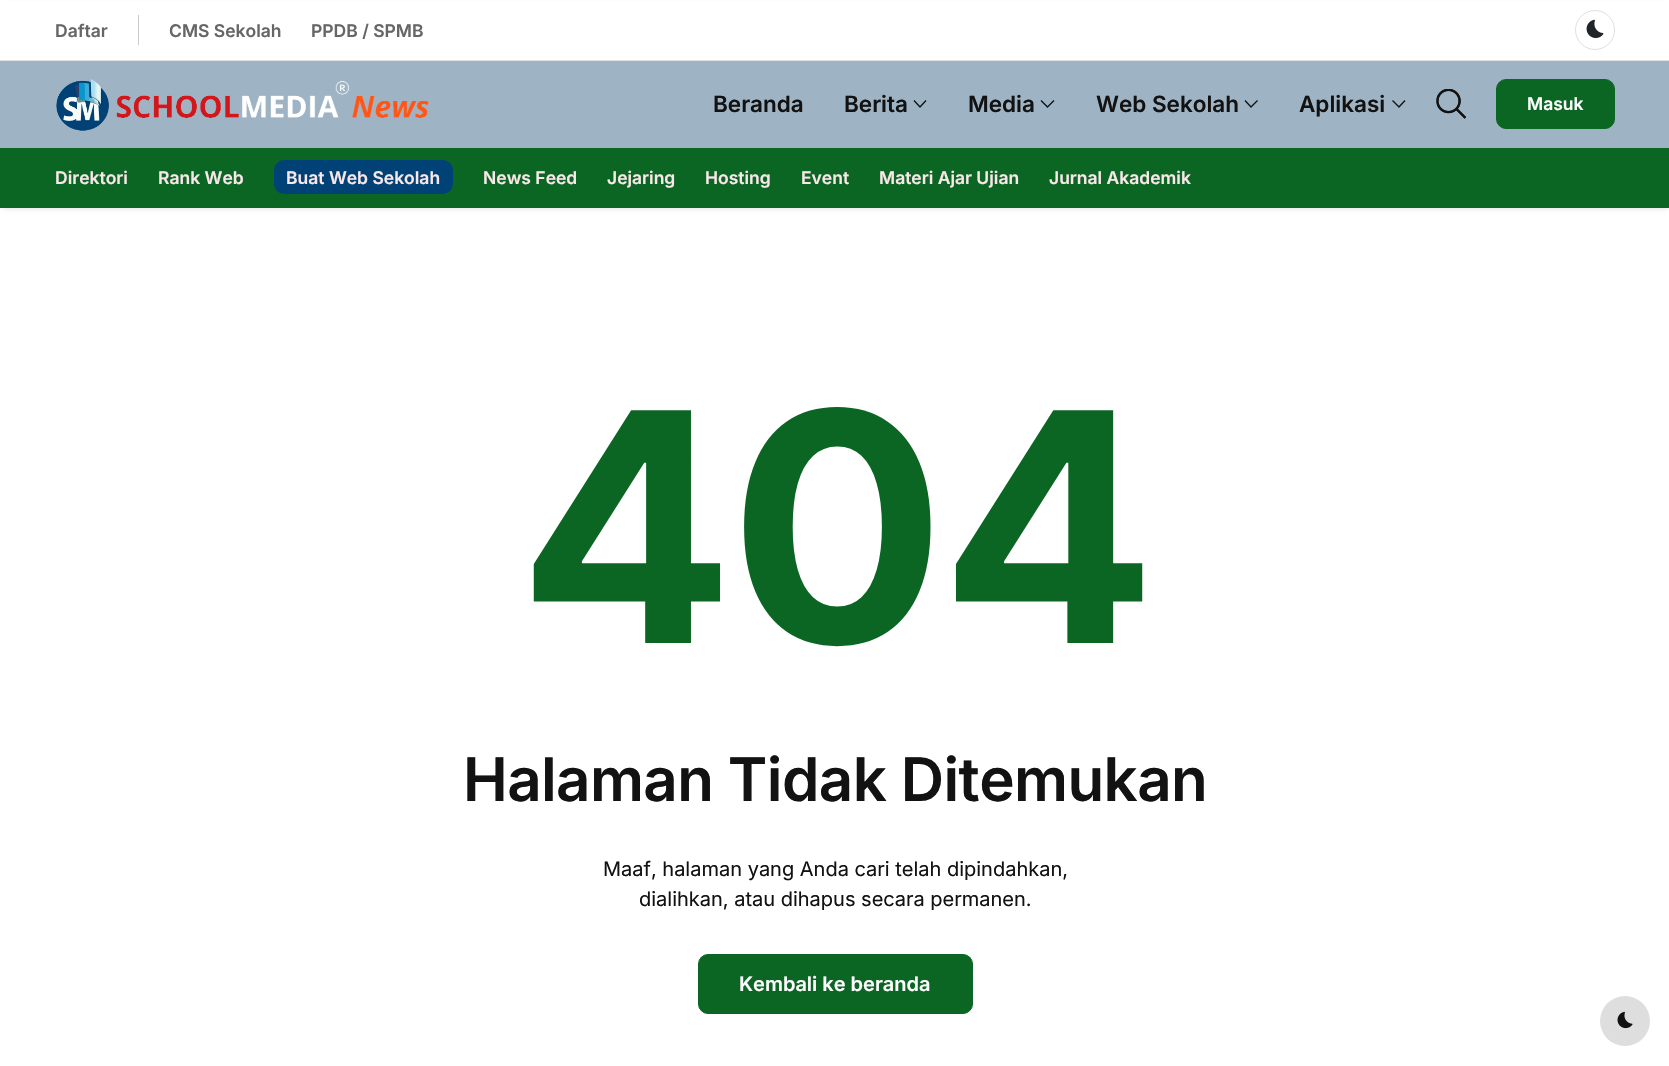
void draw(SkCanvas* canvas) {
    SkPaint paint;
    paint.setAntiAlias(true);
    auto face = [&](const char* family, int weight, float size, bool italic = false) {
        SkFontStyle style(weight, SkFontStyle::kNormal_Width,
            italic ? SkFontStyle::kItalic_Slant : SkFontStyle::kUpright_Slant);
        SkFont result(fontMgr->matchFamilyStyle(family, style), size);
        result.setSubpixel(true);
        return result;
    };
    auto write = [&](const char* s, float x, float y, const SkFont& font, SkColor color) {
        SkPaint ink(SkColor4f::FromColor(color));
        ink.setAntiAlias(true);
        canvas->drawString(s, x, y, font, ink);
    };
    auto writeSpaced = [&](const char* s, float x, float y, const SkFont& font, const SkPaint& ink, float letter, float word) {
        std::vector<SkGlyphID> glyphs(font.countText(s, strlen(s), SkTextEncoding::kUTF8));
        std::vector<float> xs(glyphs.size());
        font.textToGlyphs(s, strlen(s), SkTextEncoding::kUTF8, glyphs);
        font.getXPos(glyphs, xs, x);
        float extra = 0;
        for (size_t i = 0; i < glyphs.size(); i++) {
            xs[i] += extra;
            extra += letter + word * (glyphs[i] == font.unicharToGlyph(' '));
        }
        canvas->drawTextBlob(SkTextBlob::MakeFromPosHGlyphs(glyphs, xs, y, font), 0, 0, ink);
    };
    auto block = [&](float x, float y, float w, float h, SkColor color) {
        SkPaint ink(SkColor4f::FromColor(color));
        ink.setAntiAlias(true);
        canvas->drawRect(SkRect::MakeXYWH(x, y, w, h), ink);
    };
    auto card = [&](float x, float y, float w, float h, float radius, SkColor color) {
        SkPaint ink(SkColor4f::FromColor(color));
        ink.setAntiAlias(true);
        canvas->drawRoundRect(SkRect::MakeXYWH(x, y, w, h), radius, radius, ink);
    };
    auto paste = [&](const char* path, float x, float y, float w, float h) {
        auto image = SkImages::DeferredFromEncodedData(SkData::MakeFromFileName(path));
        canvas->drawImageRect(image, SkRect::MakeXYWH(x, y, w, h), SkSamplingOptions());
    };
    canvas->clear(SK_ColorWHITE);
    paint.setColor(SkColorSetARGB(38, 0, 0, 0));
    paint.setMaskFilter(SkMaskFilter::MakeBlur(kNormal_SkBlurStyle, 2.5f));
    canvas->drawRect(SkRect::MakeXYWH(3, 5, 1665, 203), paint);
    paint.setMaskFilter(nullptr);
    block(0, 1, 1669, 59, SK_ColorWHITE);
    block(0, 60, 1669, 1, SkColorSetRGB(224, 224, 224));
    auto kFont1 = face("Inter", 600, 17.5f);
    write("Daftar", 55, 37, kFont1, SkColorSetRGB(102, 102, 102));
    block(138, 15, 1, 30, SkColorSetRGB(203, 203, 203));
    write("CMS Sekolah", 169, 37, kFont1, SkColorSetRGB(102, 102, 102));
    write("PPDB / SPMB", 311, 37, kFont1, SkColorSetRGB(102, 102, 102));
    paint.setStyle(SkPaint::kStroke_Style);
    paint.setStrokeWidth(1);
    paint.setColor(SkColorSetRGB(224, 224, 224));
    canvas->drawCircle(1595, 30, 19.5f, paint);
    paste("pic1.png", 1586, 19, 18, 20);
    block(0, 61, 1669, 87, SkColorSetRGB(158, 180, 197));
    paste("pic2.png", 56, 79, 373, 52);
    auto kFont2 = face("Inter", 600, 22.5f);
    write("Beranda", 713, 112, kFont2, SkColorSetRGB(18, 18, 18));
    write("Berita", 844, 112, kFont2, SkColorSetRGB(18, 18, 18));
    paint.setStrokeWidth(1.4f);
    paint.setColor(SkColorSetRGB(18, 18, 18));
    canvas->drawPath(SkPathBuilder().moveTo(914, 100.5f).lineTo(920, 107).lineTo(926, 100.5f).detach(), paint);
    write("Media", 968, 112, kFont2, SkColorSetRGB(18, 18, 18));
    canvas->drawPath(SkPathBuilder().moveTo(1041, 100.5f).lineTo(1047.5f, 107).lineTo(1054, 100.5f).detach(), paint);
    write("Web Sekolah", 1096, 112, kFont2, SkColorSetRGB(18, 18, 18));
    canvas->drawPath(SkPathBuilder().moveTo(1245, 100.5f).lineTo(1251, 107).lineTo(1257.5f, 100.5f).detach(), paint);
    write("Aplikasi", 1299, 112, kFont2, SkColorSetRGB(18, 18, 18));
    canvas->drawPath(SkPathBuilder().moveTo(1392.5f, 100.5f).lineTo(1399, 107).lineTo(1405, 100.5f).detach(), paint);
    paste("pic3.png", 1436, 89, 30, 30);
    paint.setStyle(SkPaint::kFill_Style);
    paint.setColor(SkColorSetRGB(11, 102, 35));
    canvas->drawRoundRect(SkRect::MakeXYWH(1496.5f, 79.5f, 118, 49), 9.5f, 9.5f, paint);
    paint.setStyle(SkPaint::kStroke_Style);
    paint.setStrokeWidth(1);
    canvas->drawRoundRect(SkRect::MakeXYWH(1496.5f, 79.5f, 118, 49), 9.5f, 9.5f, paint);
    write("Masuk", 1527, 110, kFont1, SK_ColorWHITE);
    block(0, 148, 1669, 60, SkColorSetRGB(11, 102, 35));
    write("Direktori", 55, 184, kFont1, SkColorSetRGB(250, 231, 234));
    write("Rank Web", 158, 184, kFont1, SkColorSetRGB(250, 231, 234));
    card(274, 160, 179, 34, 10, SkColorSetRGB(0, 66, 118));
    write("Buat Web Sekolah", 286, 184, kFont1, SkColorSetRGB(250, 231, 234));
    write("News Feed", 483, 184, kFont1, SkColorSetRGB(250, 231, 234));
    write("Jejaring", 607, 184, kFont1, SkColorSetRGB(250, 231, 234));
    write("Hosting", 705, 184, kFont1, SkColorSetRGB(250, 231, 234));
    write("Event", 801, 184, kFont1, SkColorSetRGB(250, 231, 234));
    write("Materi Ajar Ujian", 879, 184, kFont1, SkColorSetRGB(250, 231, 234));
    write("Jurnal Akademik", 1049, 184, kFont1, SkColorSetRGB(250, 231, 234));
    auto kFont3 = face("Inter", 700, 320);
    paint.setStyle(SkPaint::kFill_Style);
    writeSpaced("404", 518, 643, kFont3, paint, -5, 0);
    auto kFont4 = face("Inter", 600, 60);
    paint.setColor(SkColorSetRGB(18, 18, 18));
    writeSpaced("Halaman Tidak Ditemukan", 463, 801, kFont4, paint, -0.6f, 0);
    auto kFont5 = face("Inter", 400, 20);
    write("Maaf, halaman yang Anda cari telah dipindahkan,", 603, 876, kFont5, SkColorSetRGB(18, 18, 18));
    write("dialihkan, atau dihapus secara permanen.", 639, 906, kFont5, SkColorSetRGB(18, 18, 18));
    paint.setColor(SkColorSetRGB(11, 102, 35));
    canvas->drawRoundRect(SkRect::MakeXYWH(698.5f, 954.5f, 274, 59), 9.5f, 9.5f, paint);
    paint.setStyle(SkPaint::kStroke_Style);
    canvas->drawRoundRect(SkRect::MakeXYWH(698.5f, 954.5f, 274, 59), 9.5f, 9.5f, paint);
    auto kFont6 = face("Inter", 600, 20);
    write("Kembali ke beranda", 739, 991, kFont6, SK_ColorWHITE);
    paint.setStyle(SkPaint::kFill_Style);
    paint.setColor(SkColorSetRGB(222, 222, 222));
    canvas->drawCircle(1625, 1021, 25, paint);
    paste("pic4.png", 1617, 1011, 16, 18);
}
